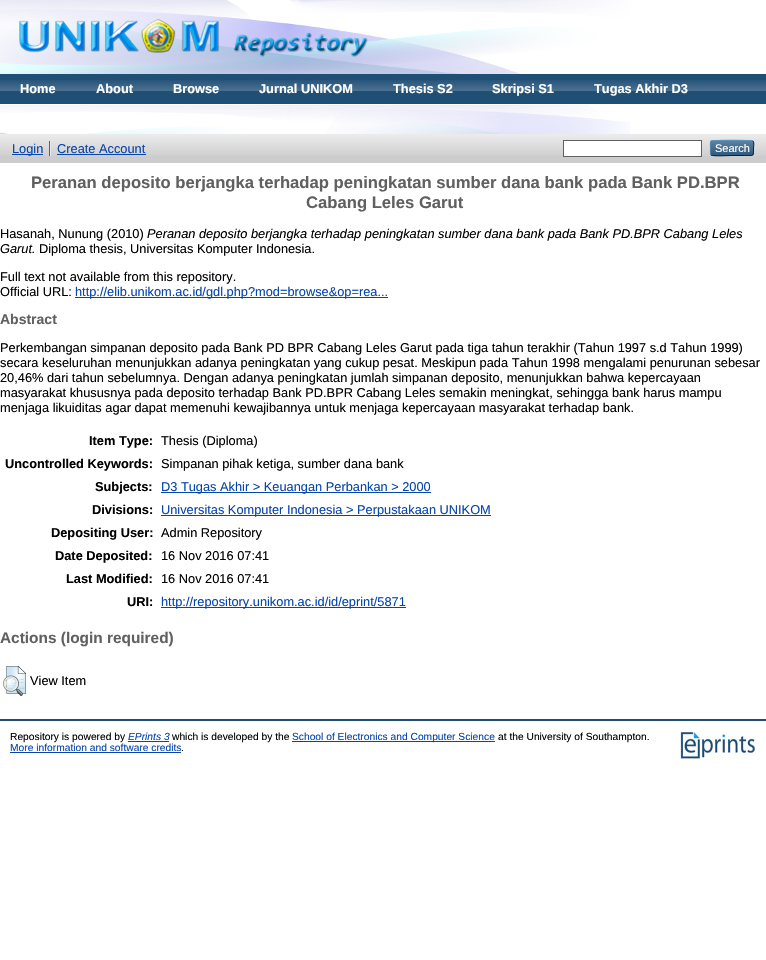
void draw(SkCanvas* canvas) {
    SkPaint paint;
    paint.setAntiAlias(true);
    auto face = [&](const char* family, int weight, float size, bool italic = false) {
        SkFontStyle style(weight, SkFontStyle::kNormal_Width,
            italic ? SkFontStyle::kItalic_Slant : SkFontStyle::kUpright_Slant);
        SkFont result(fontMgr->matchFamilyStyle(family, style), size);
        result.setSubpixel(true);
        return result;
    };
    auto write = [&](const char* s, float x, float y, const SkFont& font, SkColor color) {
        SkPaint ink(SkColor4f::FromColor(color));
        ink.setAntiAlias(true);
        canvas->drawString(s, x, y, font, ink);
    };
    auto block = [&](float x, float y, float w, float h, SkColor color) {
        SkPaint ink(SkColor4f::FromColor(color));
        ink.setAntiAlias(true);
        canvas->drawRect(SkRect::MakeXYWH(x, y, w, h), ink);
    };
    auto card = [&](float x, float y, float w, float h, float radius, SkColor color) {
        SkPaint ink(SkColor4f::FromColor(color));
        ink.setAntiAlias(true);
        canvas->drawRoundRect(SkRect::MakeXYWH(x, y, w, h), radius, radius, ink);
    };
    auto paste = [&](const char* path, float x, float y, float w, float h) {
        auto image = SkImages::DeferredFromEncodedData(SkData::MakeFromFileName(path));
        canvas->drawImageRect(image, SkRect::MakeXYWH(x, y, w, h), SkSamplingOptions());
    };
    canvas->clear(SK_ColorWHITE);
    paste("pic1.png", 0, 0, 630, 134);
    paste("pic2.png", 19, 19, 349, 38);
    block(0, 74, 766, 30, SkColorSetRGB(32, 79, 118));
    paste("pic3.png", 0, 80, 766, 11);
    block(0, 104, 588, 1, SK_ColorWHITE);
    auto kFont1 = face("Liberation Sans", 700, 12.8f);
    write("Home", 20, 93, kFont1, SK_ColorWHITE);
    write("About", 96, 93, kFont1, SK_ColorWHITE);
    write("Browse", 173, 93, kFont1, SK_ColorWHITE);
    write("Jurnal UNIKOM", 259, 93, kFont1, SK_ColorWHITE);
    write("Thesis S2", 393, 93, kFont1, SK_ColorWHITE);
    write("Skripsi S1", 492, 93, kFont1, SK_ColorWHITE);
    write("Tugas Akhir D3", 594, 93, kFont1, SK_ColorWHITE);
    block(0, 134, 766, 29, SkColorSetRGB(204, 204, 204));
    paste("pic4.png", 0, 134, 766, 22);
    block(12, 154, 31, 1, SkColorSetRGB(6, 69, 173));
    auto kFont2 = face("Liberation Sans", 400, 12.8f);
    write("Login", 12, 153, kFont2, SkColorSetRGB(6, 69, 173));
    block(49, 141, 1, 15, SkColorSetRGB(96, 96, 96));
    write("Create Account", 57, 153, kFont2, SkColorSetRGB(6, 69, 173));
    block(50, 141, 1, 15, SkColorSetRGB(232, 232, 232));
    block(57, 154, 89, 1, SkColorSetRGB(6, 69, 173));
    paint.setColor(SK_ColorWHITE);
    canvas->drawRect(SkRect::MakeXYWH(563.5f, 140.5f, 138, 16), paint);
    paint.setStyle(SkPaint::kStroke_Style);
    paint.setStrokeWidth(1);
    paint.setColor(SkColorSetRGB(96, 96, 96));
    canvas->drawRect(SkRect::MakeXYWH(563.5f, 140.5f, 138, 16), paint);
    card(710, 140, 44, 16, 3, SkColorSetRGB(31, 79, 118));
    paste("pic5.png", 710, 140, 44, 16);
    paint.setColor(SkColorSetRGB(91, 151, 199));
    canvas->drawPath(SkPathBuilder().moveTo(711, 141).cubicTo(712.5f, 140, 751.5f, 140, 753, 141).detach(), paint);
    paint.setColor(SkColorSetRGB(13, 33, 49));
    canvas->drawPath(SkPathBuilder().moveTo(753, 141).cubicTo(754.5f, 143, 753.5f, 146, 753.5f, 148).cubicTo(753.5f, 156.5f, 754, 155.5f, 744.5f, 155.5f).lineTo(732, 155.5f).cubicTo(729, 155.5f, 713, 156.5f, 711, 155).detach(), paint);
    paint.setColor(SkColorSetRGB(82, 135, 179));
    canvas->drawPath(SkPathBuilder().moveTo(711, 155).cubicTo(710, 153.5f, 710.5f, 149.5f, 710.5f, 148).cubicTo(710.5f, 146.5f, 710, 142.5f, 711, 141).detach(), paint);
    auto kFont3 = face("Liberation Sans", 400, 11);
    write("Search", 715, 152, kFont3, SK_ColorWHITE);
    auto kFont4 = face("Liberation Sans", 700, 16.65f);
    write("Peranan deposito berjangka terhadap peningkatan sumber dana bank pada Bank PD.BPR", 31, 188, kFont4, SkColorSetRGB(96, 96, 96));
    write("Cabang Leles Garut", 306, 208, kFont4, SkColorSetRGB(96, 96, 96));
    write("Hasanah, Nunung (2010)", 0, 238, kFont2, SK_ColorBLACK);
    auto kFont5 = face("Liberation Sans", 400, 12.8f, true);
    write("Peranan deposito berjangka terhadap peningkatan sumber dana bank pada Bank PD.BPR Cabang Leles", 147, 238, kFont5, SK_ColorBLACK);
    write("Garut.", 0, 253, kFont5, SK_ColorBLACK);
    write("Diploma thesis, Universitas Komputer Indonesia.", 39, 253, kFont2, SK_ColorBLACK);
    write("Full text not available from this repository.", 0, 281, kFont2, SK_ColorBLACK);
    write("Official URL:", 0, 296, kFont2, SK_ColorBLACK);
    block(75, 297, 313, 1, SkColorSetRGB(6, 69, 173));
    write("http://elib.unikom.ac.id/gdl.php?mod=browse&op=rea...", 75, 296, kFont2, SkColorSetRGB(6, 69, 173));
    auto kFont6 = face("Liberation Sans", 700, 14);
    write("Abstract", 0, 324, kFont6, SkColorSetRGB(96, 96, 96));
    write("Perkembangan simpanan deposito pada Bank PD BPR Cabang Leles Garut pada tiga tahun terakhir (Tahun 1997 s.d Tahun 1999)", 0, 352, kFont2, SK_ColorBLACK);
    write("secara keseluruhan menunjukkan adanya peningkatan yang cukup pesat. Meskipun pada Tahun 1998 mengalami penurunan sebesar", 0, 367, kFont2, SK_ColorBLACK);
    write("20,46% dari tahun sebelumnya. Dengan adanya peningkatan jumlah simpanan deposito, menunjukkan bahwa kepercayaan", 0, 382, kFont2, SK_ColorBLACK);
    write("masyarakat khususnya pada deposito terhadap Bank PD.BPR Cabang Leles semakin meningkat, sehingga bank harus mampu", 0, 397, kFont2, SK_ColorBLACK);
    write("menjaga likuiditas agar dapat memenuhi kewajibannya untuk menjaga kepercayaan masyarakat terhadap bank.", 0, 412, kFont2, SK_ColorBLACK);
    write("Item Type:", 89, 445, kFont1, SK_ColorBLACK);
    write("Thesis (Diploma)", 161, 445, kFont2, SK_ColorBLACK);
    write("Uncontrolled Keywords:", 5, 468, kFont1, SK_ColorBLACK);
    write("Simpanan pihak ketiga, sumber dana bank", 161, 468, kFont2, SK_ColorBLACK);
    write("Subjects:", 95, 491, kFont1, SK_ColorBLACK);
    block(161, 492, 270, 1, SkColorSetRGB(6, 69, 173));
    write("D3 Tugas Akhir > Keuangan Perbankan > 2000", 161, 491, kFont2, SkColorSetRGB(6, 69, 173));
    write("Divisions:", 92, 514, kFont1, SK_ColorBLACK);
    block(161, 515, 330, 1, SkColorSetRGB(6, 69, 173));
    write("Universitas Komputer Indonesia > Perpustakaan UNIKOM", 161, 514, kFont2, SkColorSetRGB(6, 69, 173));
    write("Depositing User:", 51, 537, kFont1, SK_ColorBLACK);
    write("Admin Repository", 161, 537, kFont2, SK_ColorBLACK);
    write("Date Deposited:", 55, 560, kFont1, SK_ColorBLACK);
    write("16 Nov 2016 07:41", 161, 560, kFont2, SK_ColorBLACK);
    write("Last Modified:", 66, 583, kFont1, SK_ColorBLACK);
    write("16 Nov 2016 07:41", 161, 583, kFont2, SK_ColorBLACK);
    write("URI:", 127, 606, kFont1, SK_ColorBLACK);
    block(161, 607, 245, 1, SkColorSetRGB(6, 69, 173));
    write("http://repository.unikom.ac.id/id/eprint/5871", 161, 606, kFont2, SkColorSetRGB(6, 69, 173));
    auto kFont7 = face("Liberation Sans", 700, 15.4f);
    write("Actions (login required)", 0, 643, kFont7, SkColorSetRGB(96, 96, 96));
    paste("pic6.png", 3, 666, 23, 30);
    write("View Item", 30, 685, kFont2, SK_ColorBLACK);
    block(0, 719, 766, 2, SkColorSetRGB(32, 79, 118));
    auto kFont8 = face("Liberation Sans", 400, 10.25f);
    write("Repository is powered by", 10, 740, kFont8, SK_ColorBLACK);
    auto kFont9 = face("Liberation Sans", 400, 10.25f, true);
    write("EPrints 3", 128, 740, kFont9, SkColorSetRGB(6, 69, 173));
    block(128, 741, 41, 1, SkColorSetRGB(6, 69, 173));
    write("which is developed by the", 172, 740, kFont8, SK_ColorBLACK);
    block(292, 741, 203, 1, SkColorSetRGB(6, 69, 173));
    write("School of Electronics and Computer Science", 292, 740, kFont8, SkColorSetRGB(6, 69, 173));
    write("at the University of Southampton.", 498, 740, kFont8, SK_ColorBLACK);
    write("More information and software credits", 10, 751, kFont8, SkColorSetRGB(6, 69, 173));
    block(10, 752, 171, 1, SkColorSetRGB(6, 69, 173));
    write(".", 181, 751, kFont8, SK_ColorBLACK);
    paste("pic7.png", 679, 732, 76, 28);
}
